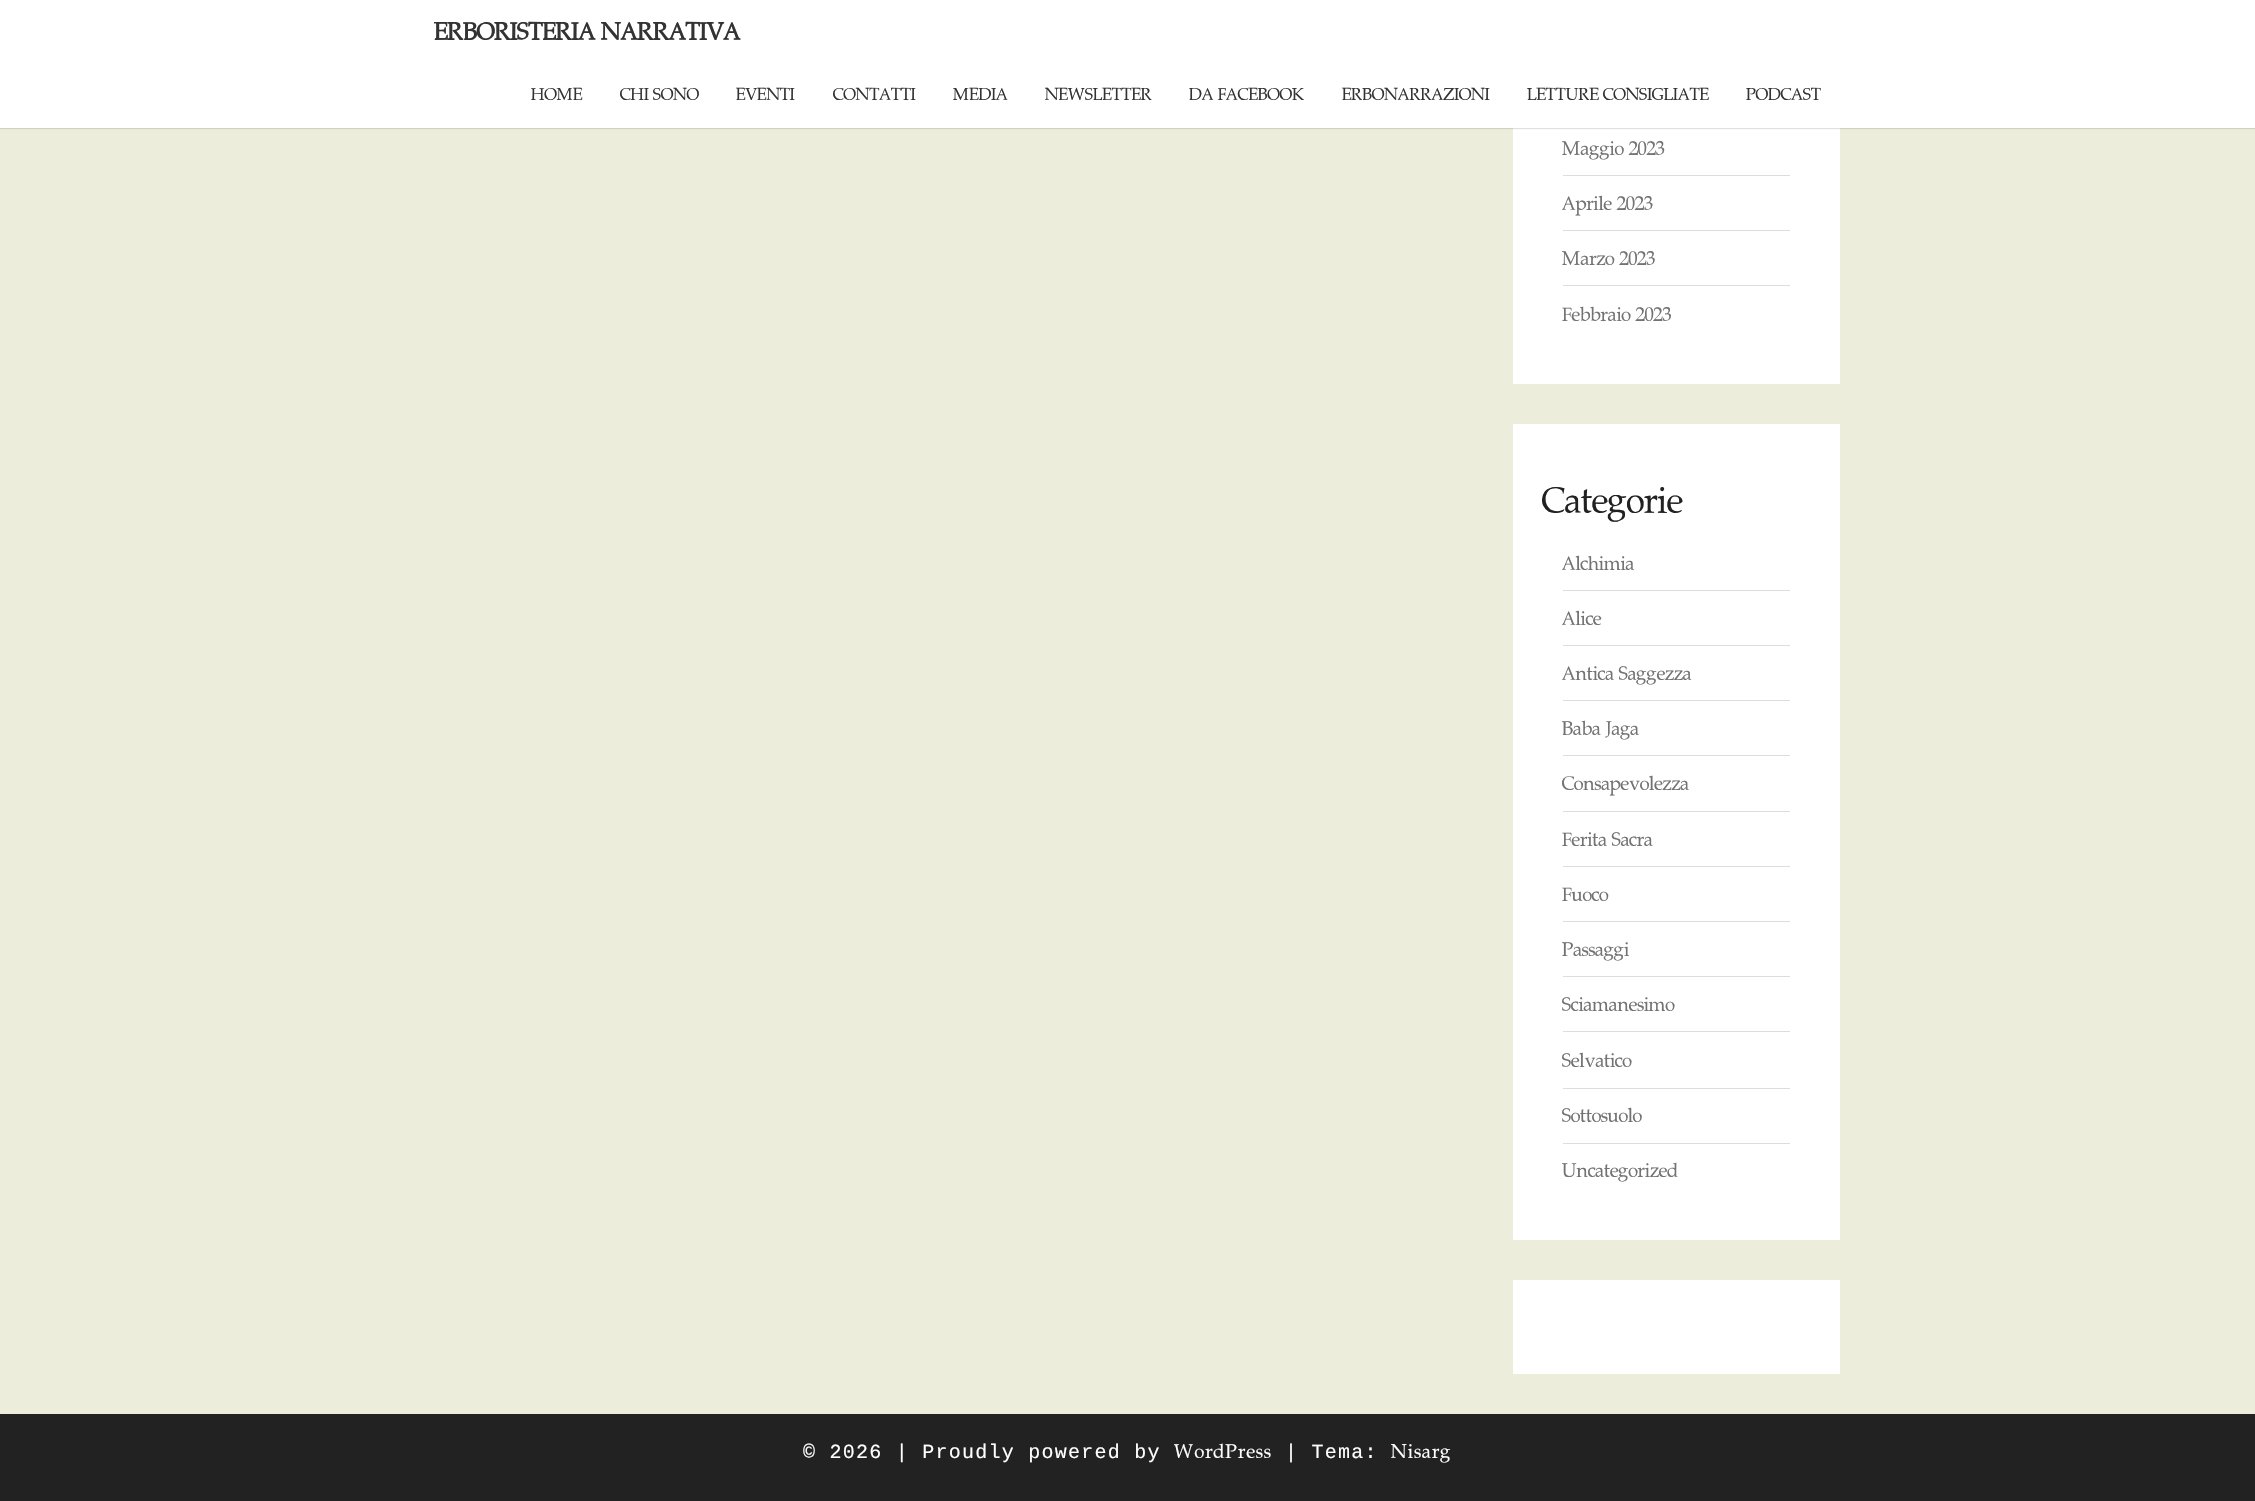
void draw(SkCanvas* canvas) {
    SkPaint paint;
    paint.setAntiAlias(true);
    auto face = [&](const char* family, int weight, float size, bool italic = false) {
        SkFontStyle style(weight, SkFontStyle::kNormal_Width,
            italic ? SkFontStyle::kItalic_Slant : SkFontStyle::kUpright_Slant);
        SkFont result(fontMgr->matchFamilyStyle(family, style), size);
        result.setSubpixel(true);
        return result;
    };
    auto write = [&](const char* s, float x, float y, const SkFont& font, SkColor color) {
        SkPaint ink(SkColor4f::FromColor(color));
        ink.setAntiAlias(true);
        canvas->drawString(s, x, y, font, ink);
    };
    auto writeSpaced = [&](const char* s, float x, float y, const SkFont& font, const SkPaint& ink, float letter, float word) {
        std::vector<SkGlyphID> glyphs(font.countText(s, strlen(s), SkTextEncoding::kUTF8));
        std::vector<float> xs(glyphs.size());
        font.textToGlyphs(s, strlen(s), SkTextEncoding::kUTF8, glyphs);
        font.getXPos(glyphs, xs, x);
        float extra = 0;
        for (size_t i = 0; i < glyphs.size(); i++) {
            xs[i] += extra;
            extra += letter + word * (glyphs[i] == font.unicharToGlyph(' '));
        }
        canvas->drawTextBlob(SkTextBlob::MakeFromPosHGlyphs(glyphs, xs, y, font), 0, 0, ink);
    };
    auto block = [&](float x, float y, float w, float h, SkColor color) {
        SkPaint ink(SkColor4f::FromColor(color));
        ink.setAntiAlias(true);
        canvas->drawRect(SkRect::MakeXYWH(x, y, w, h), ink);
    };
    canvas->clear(SkColorSetRGB(237, 237, 220));
    block(1513, 128, 327, 256, SK_ColorWHITE);
    paint.setColor(SkColorSetARGB(51, 100, 100, 100));
    paint.setMaskFilter(SkMaskFilter::MakeBlur(kNormal_SkBlurStyle, 0.5f));
    canvas->drawRect(SkRect::MakeXYWH(0, 1, 2255, 128), paint);
    paint.setMaskFilter(nullptr);
    block(0, 0, 2255, 128, SK_ColorWHITE);
    auto kFont1 = face("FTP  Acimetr", 700, 25);
    write("ERBORISTERIA NARRATIVA", 434, 40, kFont1, SkColorSetRGB(51, 51, 51));
    auto kFont2 = face("FTP  Acimetr", 400, 17.5f);
    write("HOME", 531, 100, kFont2, SkColorSetRGB(51, 51, 51));
    write("CHI SONO", 620, 100, kFont2, SkColorSetRGB(51, 51, 51));
    write("EVENTI", 736, 100, kFont2, SkColorSetRGB(51, 51, 51));
    write("CONTATTI", 833, 100, kFont2, SkColorSetRGB(51, 51, 51));
    write("MEDIA", 953, 100, kFont2, SkColorSetRGB(51, 51, 51));
    write("NEWSLETTER", 1045, 100, kFont2, SkColorSetRGB(51, 51, 51));
    write("DA FACEBOOK", 1189, 100, kFont2, SkColorSetRGB(51, 51, 51));
    write("ERBONARRAZIONI", 1342, 100, kFont2, SkColorSetRGB(51, 51, 51));
    write("LETTURE CONSIGLIATE", 1527, 100, kFont2, SkColorSetRGB(51, 51, 51));
    write("PODCAST", 1746, 100, kFont2, SkColorSetRGB(51, 51, 51));
    block(1563, 175, 227, 1, SkColorSetRGB(221, 221, 221));
    auto kFont3 = face("FTP  Acimetr", 400, 20);
    write("Maggio 2023", 1562, 155, kFont3, SkColorSetRGB(114, 114, 114));
    block(1563, 230, 227, 1, SkColorSetRGB(221, 221, 221));
    write("Aprile 2023", 1562, 210, kFont3, SkColorSetRGB(114, 114, 114));
    block(1563, 285, 227, 1, SkColorSetRGB(221, 221, 221));
    write("Marzo 2023", 1562, 265, kFont3, SkColorSetRGB(114, 114, 114));
    write("Febbraio 2023", 1562, 321, kFont3, SkColorSetRGB(114, 114, 114));
    block(1513, 424, 327, 816, SK_ColorWHITE);
    auto kFont4 = face("FTP  Acimetr", 400, 37.5f);
    write("Categorie", 1542, 513, kFont4, SkColorSetRGB(33, 33, 33));
    block(1563, 590, 227, 1, SkColorSetRGB(221, 221, 221));
    write("Alchimia", 1562, 570, kFont3, SkColorSetRGB(114, 114, 114));
    block(1563, 645, 227, 1, SkColorSetRGB(221, 221, 221));
    write("Alice", 1562, 625, kFont3, SkColorSetRGB(114, 114, 114));
    block(1563, 700, 227, 1, SkColorSetRGB(221, 221, 221));
    write("Antica Saggezza", 1562, 680, kFont3, SkColorSetRGB(114, 114, 114));
    block(1563, 755, 227, 1, SkColorSetRGB(221, 221, 221));
    write("Baba Jaga", 1562, 735, kFont3, SkColorSetRGB(114, 114, 114));
    block(1563, 811, 227, 1, SkColorSetRGB(221, 221, 221));
    write("Consapevolezza", 1562, 790, kFont3, SkColorSetRGB(114, 114, 114));
    block(1563, 866, 227, 1, SkColorSetRGB(221, 221, 221));
    write("Ferita Sacra", 1562, 846, kFont3, SkColorSetRGB(114, 114, 114));
    block(1563, 921, 227, 1, SkColorSetRGB(221, 221, 221));
    write("Fuoco", 1562, 901, kFont3, SkColorSetRGB(114, 114, 114));
    block(1563, 976, 227, 1, SkColorSetRGB(221, 221, 221));
    write("Passaggi", 1562, 956, kFont3, SkColorSetRGB(114, 114, 114));
    block(1563, 1031, 227, 1, SkColorSetRGB(221, 221, 221));
    write("Sciamanesimo", 1562, 1011, kFont3, SkColorSetRGB(114, 114, 114));
    block(1563, 1088, 227, 1, SkColorSetRGB(221, 221, 221));
    write("Selvatico", 1562, 1067, kFont3, SkColorSetRGB(114, 114, 114));
    block(1563, 1143, 227, 1, SkColorSetRGB(221, 221, 221));
    write("Sottosuolo", 1562, 1122, kFont3, SkColorSetRGB(114, 114, 114));
    write("Uncategorized", 1562, 1177, kFont3, SkColorSetRGB(114, 114, 114));
    block(1513, 1280, 327, 94, SK_ColorWHITE);
    block(0, 1414, 2255, 87, SkColorSetRGB(34, 34, 34));
    auto kFont5 = face("Liberation Mono", 400, 20);
    paint.setColor(SK_ColorWHITE);
    writeSpaced("© 2026 | Proudly powered by", 803, 1458, kFont5, paint, 1.25f, 0);
    writeSpaced("WordPress", 1174, 1458, kFont3, paint, 1.25f, 0);
    writeSpaced("| Tema:", 1285, 1458, kFont5, paint, 1.25f, 0);
    writeSpaced("Nisarg", 1391, 1458, kFont3, paint, 1.25f, 0);
}
